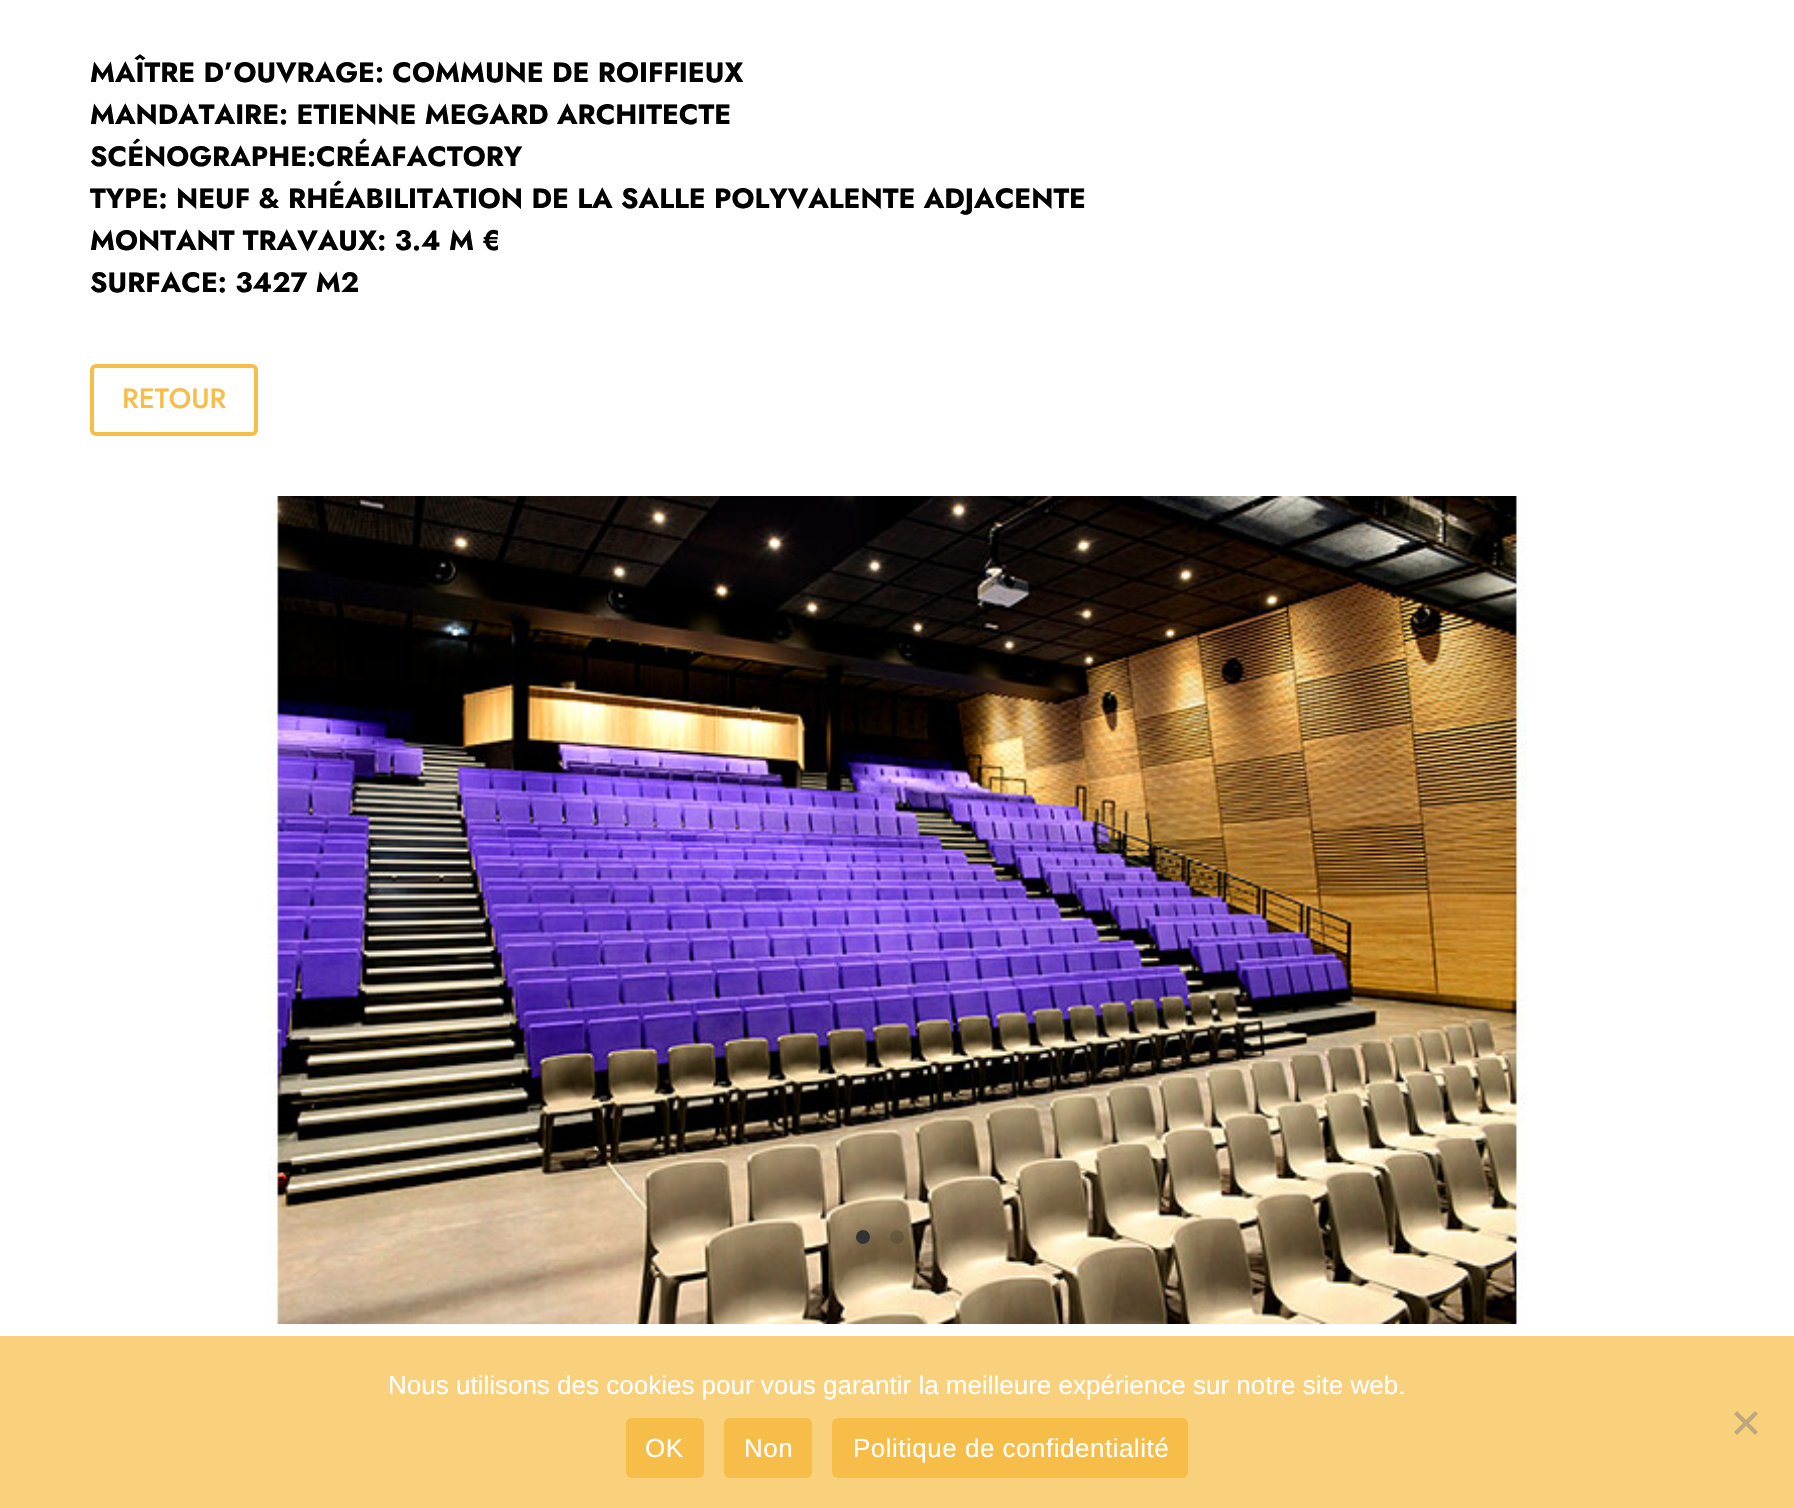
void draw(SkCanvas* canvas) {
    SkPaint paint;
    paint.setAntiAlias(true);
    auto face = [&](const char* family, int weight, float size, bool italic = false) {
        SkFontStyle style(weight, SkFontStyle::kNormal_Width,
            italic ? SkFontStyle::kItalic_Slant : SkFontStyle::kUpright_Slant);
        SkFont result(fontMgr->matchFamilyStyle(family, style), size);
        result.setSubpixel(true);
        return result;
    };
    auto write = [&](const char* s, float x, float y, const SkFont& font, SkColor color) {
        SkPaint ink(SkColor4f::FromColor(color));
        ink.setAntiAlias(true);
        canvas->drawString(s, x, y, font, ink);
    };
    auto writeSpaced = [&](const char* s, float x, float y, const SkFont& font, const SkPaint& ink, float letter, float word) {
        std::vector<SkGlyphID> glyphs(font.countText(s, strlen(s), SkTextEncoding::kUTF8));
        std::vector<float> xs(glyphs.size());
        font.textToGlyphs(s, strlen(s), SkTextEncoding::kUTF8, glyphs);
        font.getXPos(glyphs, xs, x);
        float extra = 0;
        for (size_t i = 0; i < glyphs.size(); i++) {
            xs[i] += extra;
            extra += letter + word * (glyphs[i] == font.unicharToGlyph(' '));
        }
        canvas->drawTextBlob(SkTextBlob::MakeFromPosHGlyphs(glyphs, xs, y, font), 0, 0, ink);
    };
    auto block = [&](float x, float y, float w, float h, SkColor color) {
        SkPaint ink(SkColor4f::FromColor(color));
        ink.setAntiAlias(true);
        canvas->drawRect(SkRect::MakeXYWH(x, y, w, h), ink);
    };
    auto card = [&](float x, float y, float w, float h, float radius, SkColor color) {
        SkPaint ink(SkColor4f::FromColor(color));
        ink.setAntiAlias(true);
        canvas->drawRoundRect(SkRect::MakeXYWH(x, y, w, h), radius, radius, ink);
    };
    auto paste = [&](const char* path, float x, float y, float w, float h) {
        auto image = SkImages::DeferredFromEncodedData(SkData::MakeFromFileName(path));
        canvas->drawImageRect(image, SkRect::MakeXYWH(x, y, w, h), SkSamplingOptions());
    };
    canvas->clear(SK_ColorWHITE);
    auto kFont1 = face("Jost", 700, 28);
    write("MAÎTRE D’OUVRAGE: COMMUNE DE ROIFFIEUX", 90, 82, kFont1, SK_ColorBLACK);
    write("MANDATAIRE: ETIENNE MEGARD ARCHITECTE", 90, 124, kFont1, SK_ColorBLACK);
    write("SCÉNOGRAPHE:CRÉAFACTORY", 90, 166, kFont1, SK_ColorBLACK);
    write("TYPE: NEUF & RHÉABILITATION DE LA SALLE POLYVALENTE ADJACENTE", 90, 208, kFont1, SK_ColorBLACK);
    write("MONTANT TRAVAUX: 3.4 M €", 90, 250, kFont1, SK_ColorBLACK);
    write("SURFACE: 3427 M2", 90, 292, kFont1, SK_ColorBLACK);
    paint.setStyle(SkPaint::kStroke_Style);
    paint.setStrokeWidth(4);
    paint.setColor(SkColorSetRGB(246, 189, 73));
    canvas->drawRoundRect(SkRect::MakeXYWH(92, 366, 164, 68), 4, 4, paint);
    auto kFont2 = face("Jost", 500, 28);
    write("RETOUR", 122, 408, kFont2, SkColorSetRGB(246, 189, 73));
    paste("pic1.png", 267, 496, 1260, 828);
    paint.setStyle(SkPaint::kFill_Style);
    paint.setColor(SkColorSetRGB(51, 51, 51));
    canvas->drawCircle(863, 1237, 7, paint);
    paint.setColor(SkColorSetARGB(38, 0, 0, 0));
    canvas->drawCircle(897, 1237, 7, paint);
    canvas->drawCircle(931, 1237, 7, paint);
    block(0, 1336, 1794, 172, SkColorSetRGB(249, 208, 124));
    auto kFont3 = face("Liberation Sans", 400, 26);
    write("Nous utilisons des cookies pour vous garantir la meilleure expérience sur notre site web.", 388, 1394, kFont3, SK_ColorWHITE);
    paint.setColor(SkColorSetRGB(189, 168, 126));
    canvas->drawPath(SkPathBuilder().moveTo(1755, 1411).lineTo(1758, 1414).lineTo(1737, 1435).lineTo(1734, 1432).close().detach(), paint);
    canvas->drawPath(SkPathBuilder().moveTo(1734, 1414).lineTo(1737, 1411).lineTo(1758, 1432).lineTo(1755, 1435).close().detach(), paint);
    card(626, 1418, 78, 60, 6, SkColorSetRGB(246, 189, 73));
    paint.setColor(SK_ColorWHITE);
    writeSpaced("OK", 645, 1457, kFont3, paint, 0.5f, 0);
    card(724, 1418, 88, 60, 6, SkColorSetRGB(246, 189, 73));
    writeSpaced("Non", 744, 1457, kFont3, paint, 0.5f, 0);
    card(832, 1418, 356, 60, 6, SkColorSetRGB(246, 189, 73));
    writeSpaced("Politique de confidentialité", 853, 1457, kFont3, paint, 0.5f, 0);
}
